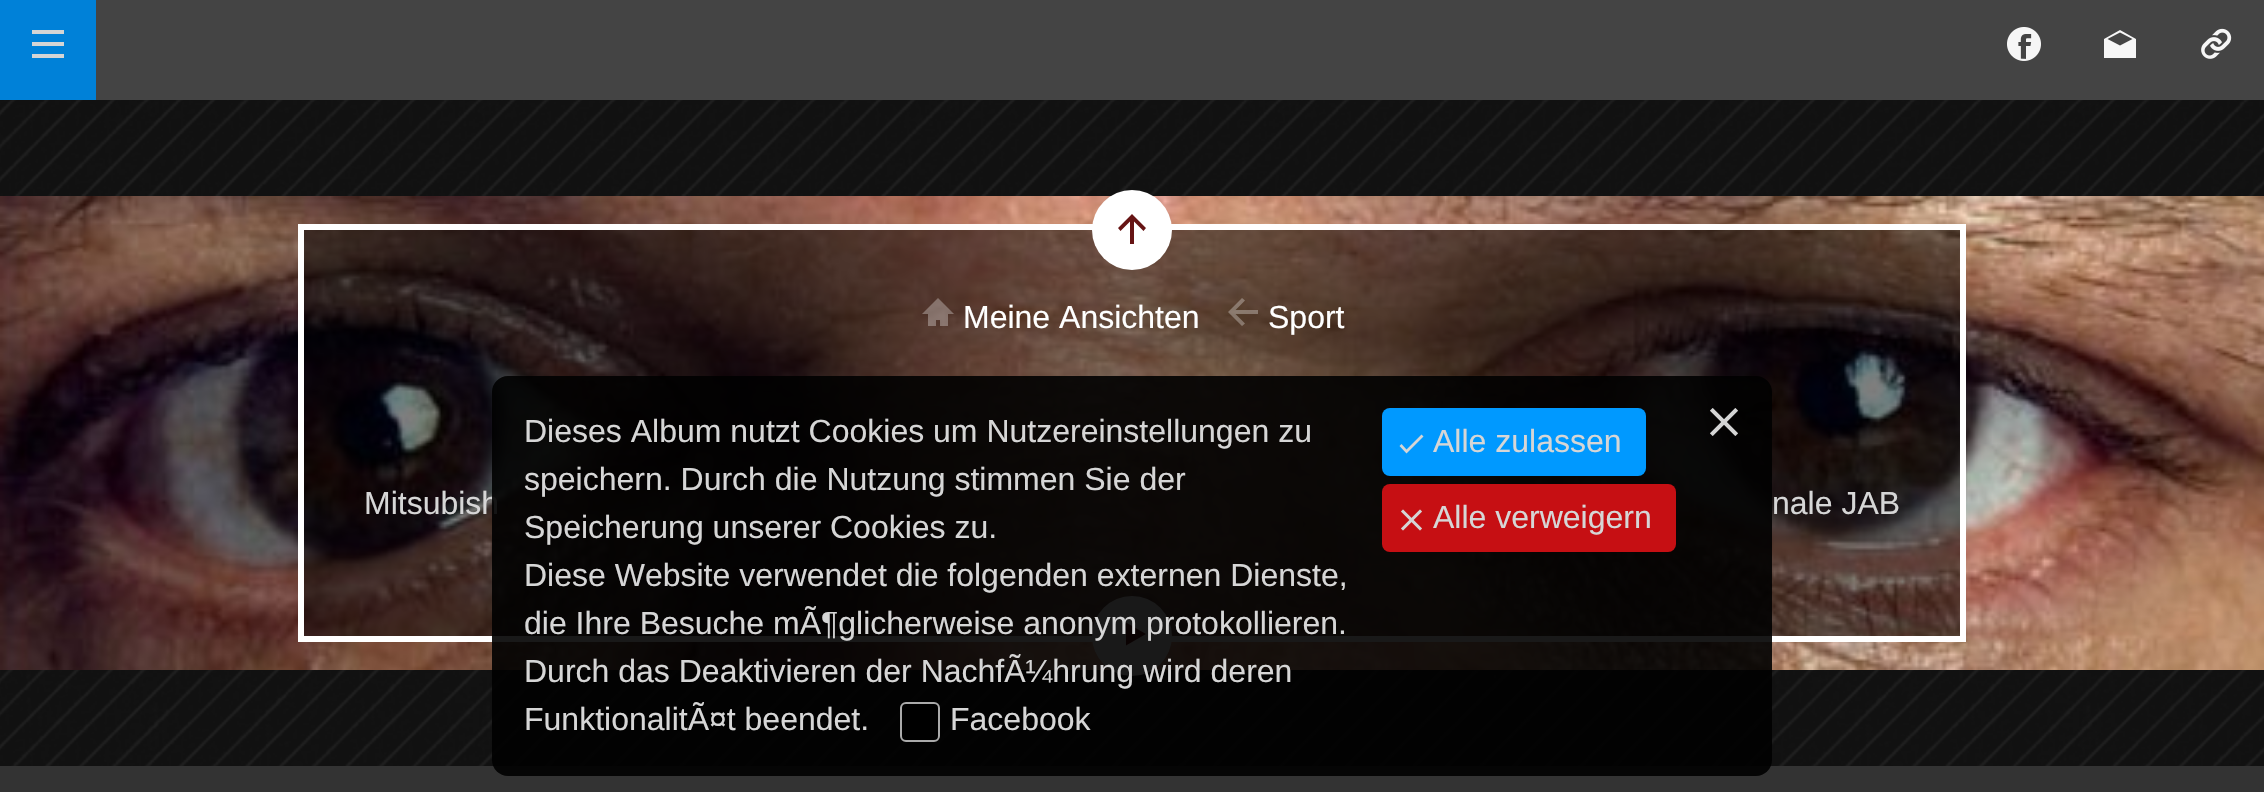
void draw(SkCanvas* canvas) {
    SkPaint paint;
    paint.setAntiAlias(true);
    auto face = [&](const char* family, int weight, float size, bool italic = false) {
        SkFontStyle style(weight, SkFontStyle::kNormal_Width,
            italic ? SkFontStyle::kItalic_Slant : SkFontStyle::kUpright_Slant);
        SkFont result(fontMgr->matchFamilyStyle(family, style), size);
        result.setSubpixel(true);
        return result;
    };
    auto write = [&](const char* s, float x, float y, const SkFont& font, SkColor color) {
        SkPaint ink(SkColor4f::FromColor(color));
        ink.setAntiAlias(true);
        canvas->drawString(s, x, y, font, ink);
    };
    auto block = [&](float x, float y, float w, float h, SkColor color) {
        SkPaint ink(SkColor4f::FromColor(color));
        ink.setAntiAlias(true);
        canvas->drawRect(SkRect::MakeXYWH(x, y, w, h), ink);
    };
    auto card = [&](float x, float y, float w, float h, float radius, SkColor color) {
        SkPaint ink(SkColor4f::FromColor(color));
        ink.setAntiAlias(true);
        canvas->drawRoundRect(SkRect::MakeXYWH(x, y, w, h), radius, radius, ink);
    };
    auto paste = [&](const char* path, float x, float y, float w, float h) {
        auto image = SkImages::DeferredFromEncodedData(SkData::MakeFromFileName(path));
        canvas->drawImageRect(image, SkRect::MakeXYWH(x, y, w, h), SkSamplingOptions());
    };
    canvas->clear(SkColorSetRGB(17, 17, 17));
    paste("pic1.png", 0, 100, 2264, 666);
    block(96, 0, 2168, 100, SkColorSetRGB(68, 68, 68));
    block(0, 0, 96, 100, SkColorSetRGB(0, 129, 216));
    paste("pic2.png", 32, 30, 32, 28);
    paste("pic3.png", 2007, 27, 34, 34);
    paint.setColor(SkColorSetRGB(246, 246, 246));
    canvas->drawPath(SkPathBuilder().moveTo(2120, 30).lineTo(2104, 39).lineTo(2104, 58).lineTo(2136, 58).lineTo(2136, 39).close().moveTo(2132.5f, 39).lineTo(2120, 45.5f).lineTo(2107.5f, 39).lineTo(2120, 32.5f).close().detach(), paint);
    paste("pic4.png", 2201, 28, 31, 31);
    paste("pic5.png", 0, 196, 2264, 474);
    paint.setColor(SkColorSetARGB(128, 0, 0, 0));
    canvas->drawRect(SkRect::MakeXYWH(301, 227, 1662, 412), paint);
    paint.setStyle(SkPaint::kStroke_Style);
    paint.setStrokeWidth(6);
    paint.setColor(SK_ColorWHITE);
    canvas->drawRect(SkRect::MakeXYWH(301, 227, 1662, 412), paint);
    paint.setStyle(SkPaint::kFill_Style);
    canvas->drawCircle(1132, 230, 40, paint);
    paint.setColor(SkColorSetRGB(102, 20, 20));
    canvas->drawPath(SkPathBuilder().moveTo(1146, 228).lineTo(1132, 214).lineTo(1118, 228).lineTo(1120.5f, 231).lineTo(1130, 221.5f).lineTo(1130, 244).lineTo(1134, 244).lineTo(1134, 221.5f).lineTo(1143.5f, 231).close().detach(), paint);
    auto kFont1 = face("Liberation Sans", 400, 32);
    write("Meine Ansichten", 963, 328, kFont1, SK_ColorWHITE);
    paint.setColor(SkColorSetARGB(77, 255, 255, 255));
    canvas->drawPath(SkPathBuilder().moveTo(938, 298).lineTo(922, 314).lineTo(928, 314).lineTo(928, 326).lineTo(936, 326).lineTo(936, 320).lineTo(940, 320).lineTo(940, 326).lineTo(948, 326).lineTo(948, 314).lineTo(954, 314).close().detach(), paint);
    write("Sport", 1268, 328, kFont1, SK_ColorWHITE);
    canvas->drawPath(SkPathBuilder().moveTo(1242, 326).lineTo(1228, 312).lineTo(1242, 298).lineTo(1245, 300.5f).lineTo(1235.5f, 310).lineTo(1258, 310).lineTo(1258, 314).lineTo(1235.5f, 314).lineTo(1245, 323.5f).close().detach(), paint);
    write("Mitsubish", 364, 514, kFont1, SkColorSetRGB(214, 214, 214));
    write("nale JAB", 1772, 514, kFont1, SkColorSetRGB(214, 214, 214));
    paint.setColor(SK_ColorWHITE);
    canvas->drawCircle(1132, 636, 40, paint);
    paint.setColor(SkColorSetRGB(102, 20, 20));
    canvas->drawPath(SkPathBuilder().moveTo(1126, 622.5f).lineTo(1146, 634).lineTo(1126, 645.5f).close().detach(), paint);
    block(0, 766, 2264, 26, SkColorSetRGB(51, 51, 51));
    card(492, 376, 1280, 400, 16, SkColorSetARGB(230, 0, 0, 0));
    write("Dieses Album nutzt Cookies um Nutzereinstellungen zu", 524, 442, kFont1, SkColorSetRGB(214, 214, 214));
    write("speichern. Durch die Nutzung stimmen Sie der", 524, 490, kFont1, SkColorSetRGB(214, 214, 214));
    write("Speicherung unserer Cookies zu.", 524, 538, kFont1, SkColorSetRGB(214, 214, 214));
    write("Diese Website verwendet die folgenden externen Dienste,", 524, 586, kFont1, SkColorSetRGB(214, 214, 214));
    write("die Ihre Besuche mÃ¶glicherweise anonym protokollieren.", 524, 634, kFont1, SkColorSetRGB(214, 214, 214));
    write("Durch das Deaktivieren der NachfÃ¼hrung wird deren", 524, 682, kFont1, SkColorSetRGB(214, 214, 214));
    write("FunktionalitÃ¤t beendet.", 524, 730, kFont1, SkColorSetRGB(214, 214, 214));
    paint.setColor(SK_ColorBLACK);
    canvas->drawRoundRect(SkRect::MakeXYWH(901, 703, 38, 38), 5, 5, paint);
    paint.setStyle(SkPaint::kStroke_Style);
    paint.setStrokeWidth(2);
    paint.setColor(SkColorSetRGB(170, 170, 170));
    canvas->drawRoundRect(SkRect::MakeXYWH(901, 703, 38, 38), 5, 5, paint);
    write("Facebook", 950, 730, kFont1, SkColorSetRGB(214, 214, 214));
    card(1382, 408, 264, 68, 8, SkColorSetRGB(0, 153, 255));
    paint.setStyle(SkPaint::kFill_Style);
    paint.setColor(SkColorSetRGB(213, 213, 213));
    canvas->drawPath(SkPathBuilder().moveTo(1406.5f, 449.5f).lineTo(1401.5f, 444).lineTo(1399.5f, 446).lineTo(1406.5f, 453.5f).lineTo(1423.5f, 436.5f).lineTo(1421.5f, 434.5f).close().detach(), paint);
    write("Alle zulassen", 1433, 452, kFont1, SkColorSetRGB(214, 214, 214));
    card(1382, 484, 294, 68, 8, SkColorSetRGB(198, 15, 19));
    paste("pic6.png", 1401, 509, 21, 22);
    write("Alle verweigern", 1433, 528, kFont1, SkColorSetRGB(214, 214, 214));
    paste("pic7.png", 1710, 408, 28, 28);
}
